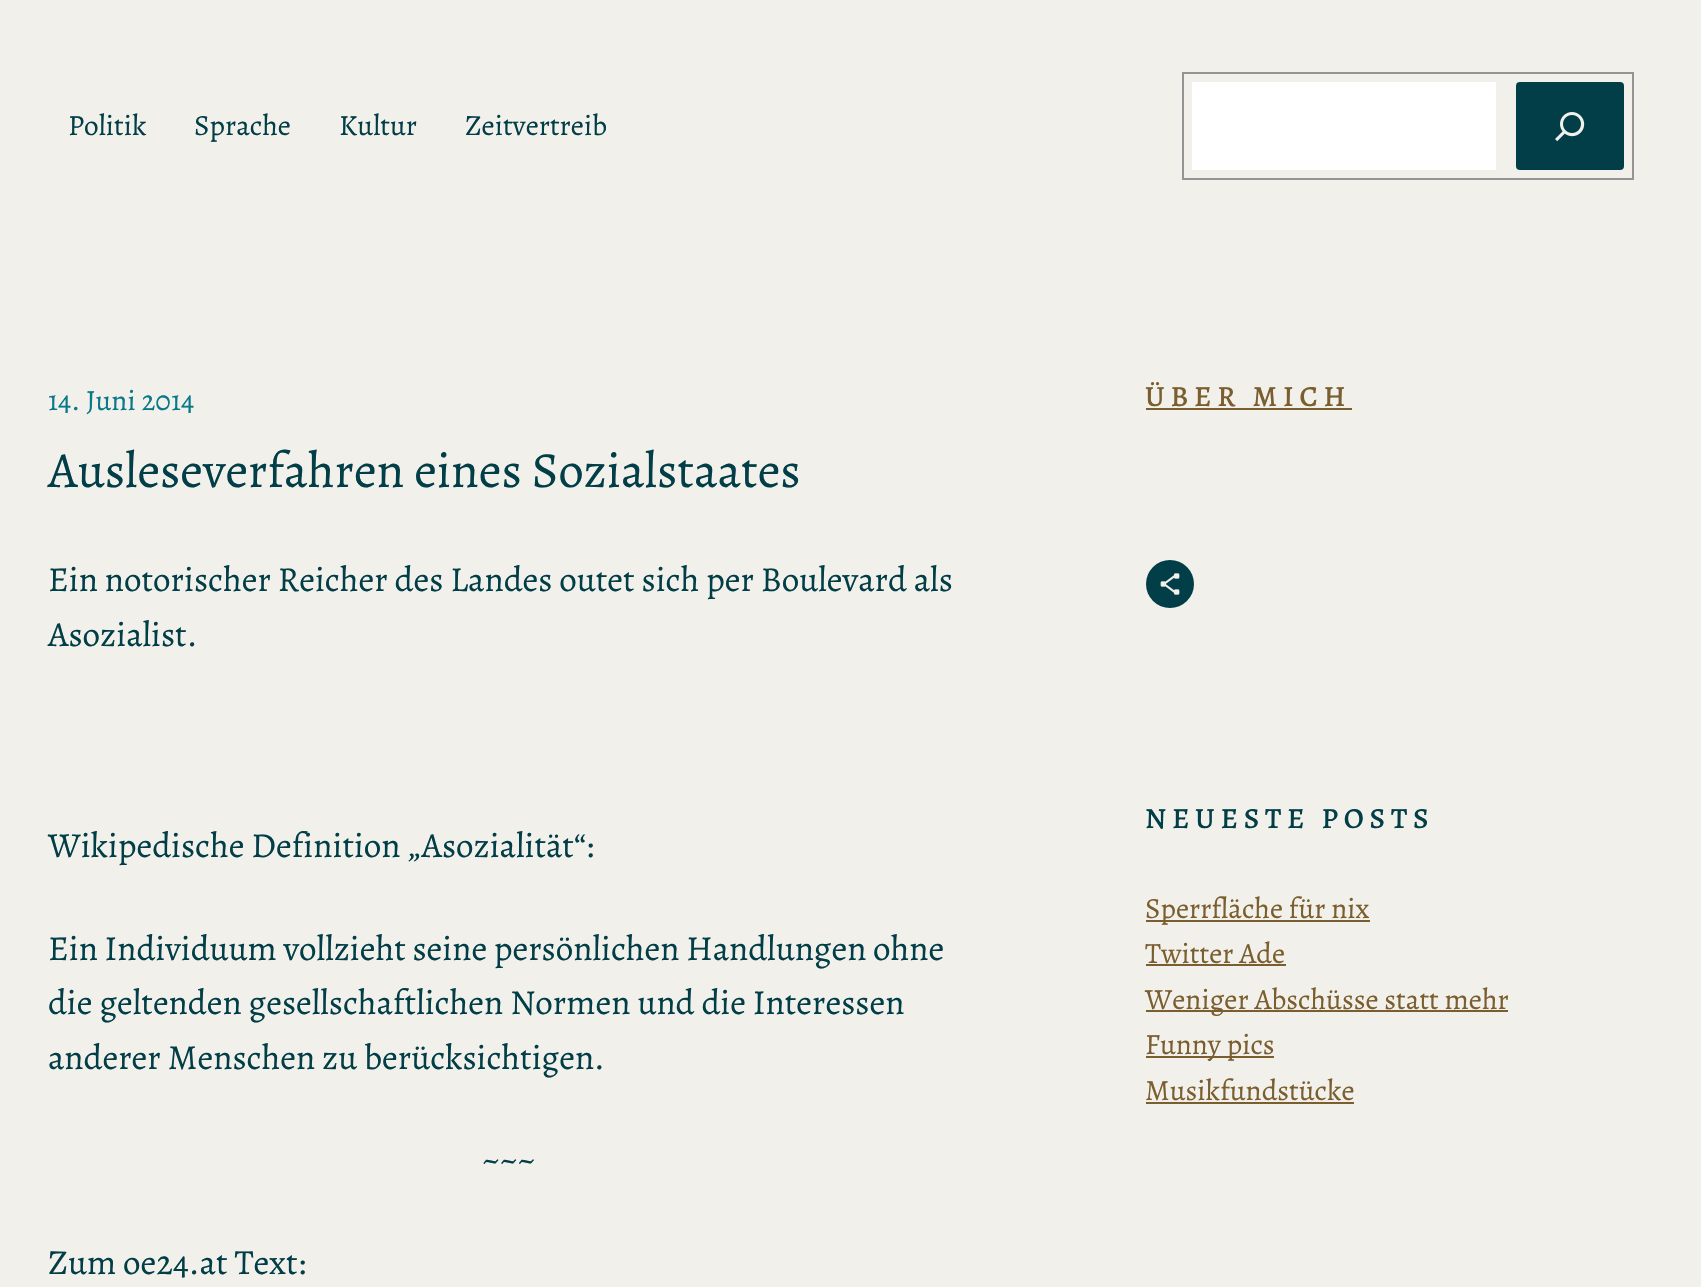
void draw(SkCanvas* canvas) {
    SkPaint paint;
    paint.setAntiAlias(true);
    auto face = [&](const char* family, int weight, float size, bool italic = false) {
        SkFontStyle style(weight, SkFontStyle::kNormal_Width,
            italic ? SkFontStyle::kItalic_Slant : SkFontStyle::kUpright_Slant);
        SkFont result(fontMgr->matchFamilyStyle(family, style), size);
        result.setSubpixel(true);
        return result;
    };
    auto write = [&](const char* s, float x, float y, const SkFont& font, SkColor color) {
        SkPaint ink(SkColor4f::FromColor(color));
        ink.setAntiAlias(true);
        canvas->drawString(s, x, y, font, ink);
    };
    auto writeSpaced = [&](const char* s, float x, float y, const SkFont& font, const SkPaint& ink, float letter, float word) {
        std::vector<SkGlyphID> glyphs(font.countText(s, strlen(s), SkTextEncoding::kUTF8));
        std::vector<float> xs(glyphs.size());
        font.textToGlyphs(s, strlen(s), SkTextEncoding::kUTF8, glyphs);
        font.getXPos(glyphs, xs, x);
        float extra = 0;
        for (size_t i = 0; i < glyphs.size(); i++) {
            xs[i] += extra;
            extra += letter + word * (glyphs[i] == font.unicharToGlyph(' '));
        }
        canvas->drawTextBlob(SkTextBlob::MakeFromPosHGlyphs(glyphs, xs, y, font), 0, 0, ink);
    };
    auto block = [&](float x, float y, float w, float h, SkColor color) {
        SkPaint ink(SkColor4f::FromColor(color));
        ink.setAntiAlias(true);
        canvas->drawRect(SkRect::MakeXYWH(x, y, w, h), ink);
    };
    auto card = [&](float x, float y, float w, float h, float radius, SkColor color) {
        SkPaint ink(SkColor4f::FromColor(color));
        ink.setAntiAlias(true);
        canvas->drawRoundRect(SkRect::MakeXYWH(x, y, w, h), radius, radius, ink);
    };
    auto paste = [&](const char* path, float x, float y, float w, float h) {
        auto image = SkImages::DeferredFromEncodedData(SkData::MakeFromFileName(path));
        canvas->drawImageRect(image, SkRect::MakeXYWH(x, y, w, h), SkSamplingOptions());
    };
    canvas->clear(SkColorSetRGB(242, 240, 234));
    auto kFont1 = face("Alegreya", 400, 29.25f);
    write("Politik", 68, 135, kFont1, SkColorSetRGB(2, 62, 71));
    write("Sprache", 194, 135, kFont1, SkColorSetRGB(2, 62, 71));
    write("Kultur", 339, 135, kFont1, SkColorSetRGB(2, 62, 71));
    write("Zeitvertreib", 465, 135, kFont1, SkColorSetRGB(2, 62, 71));
    paint.setStyle(SkPaint::kStroke_Style);
    paint.setStrokeWidth(2);
    paint.setColor(SkColorSetRGB(148, 148, 148));
    canvas->drawRect(SkRect::MakeXYWH(1183, 73, 450, 106), paint);
    block(1192, 82, 304, 88, SK_ColorWHITE);
    card(1516, 82, 108, 88, 4, SkColorSetRGB(2, 62, 71));
    paste("pic1.png", 1555, 112, 30, 30);
    write("14. Juni 2014", 48, 410, kFont1, SkColorSetRGB(9, 120, 137));
    auto kFont2 = face("Alegreya", 400, 50.5f);
    write("Ausleseverfahren eines Sozialstaates", 48, 487, kFont2, SkColorSetRGB(2, 62, 71));
    auto kFont3 = face("Alegreya", 400, 35.1f);
    write("Ein notorischer Reicher des Landes outet sich per Boulevard als", 48, 591, kFont3, SkColorSetRGB(2, 62, 71));
    write("Asozialist.", 48, 646, kFont3, SkColorSetRGB(2, 62, 71));
    write("Wikipedische Definition „Asozialität“:", 48, 857, kFont3, SkColorSetRGB(2, 62, 71));
    paint.setStyle(SkPaint::kFill_Style);
    paint.setColor(SkColorSetRGB(2, 62, 71));
    writeSpaced("Ein Individuum vollzieht seine persönlichen Handlungen ohne", 48, 960, kFont3, paint, 0, -0.25f);
    write("die geltenden gesellschaftlichen Normen und die Interessen", 48, 1014, kFont3, SkColorSetRGB(2, 62, 71));
    write("anderer Menschen zu berücksichtigen.", 48, 1069, kFont3, SkColorSetRGB(2, 62, 71));
    write("~~~", 482, 1171, kFont3, SkColorSetRGB(2, 62, 71));
    write("Zum oe24.at Text:", 48, 1274, kFont3, SkColorSetRGB(2, 62, 71));
    auto kFont4 = face("Alegreya", 500, 29.25f);
    paint.setColor(SkColorSetRGB(122, 94, 47));
    writeSpaced("ÜBER MICH", 1145, 406, kFont4, paint, 5.8f, 0);
    block(1146, 408, 206, 2, SkColorSetRGB(122, 94, 47));
    paint.setColor(SkColorSetRGB(2, 62, 71));
    canvas->drawCircle(1170, 584, 24, paint);
    paste("pic2.png", 1160, 573, 20, 22);
    writeSpaced("NEUESTE POSTS", 1145, 828, kFont4, paint, 5.8f, 0);
    block(1146, 920, 224, 2, SkColorSetRGB(122, 94, 47));
    write("Sperrfläche für nix", 1145, 918, kFont1, SkColorSetRGB(122, 94, 47));
    write("Twitter Ade", 1145, 963, kFont1, SkColorSetRGB(122, 94, 47));
    block(1146, 964, 140, 2, SkColorSetRGB(122, 94, 47));
    block(1146, 1010, 362, 2, SkColorSetRGB(122, 94, 47));
    write("Weniger Abschüsse statt mehr", 1145, 1009, kFont1, SkColorSetRGB(122, 94, 47));
    block(1146, 1056, 128, 2, SkColorSetRGB(122, 94, 47));
    write("Funny pics", 1145, 1054, kFont1, SkColorSetRGB(122, 94, 47));
    write("Musikfundstücke", 1145, 1100, kFont1, SkColorSetRGB(122, 94, 47));
    block(1146, 1102, 208, 2, SkColorSetRGB(122, 94, 47));
}
